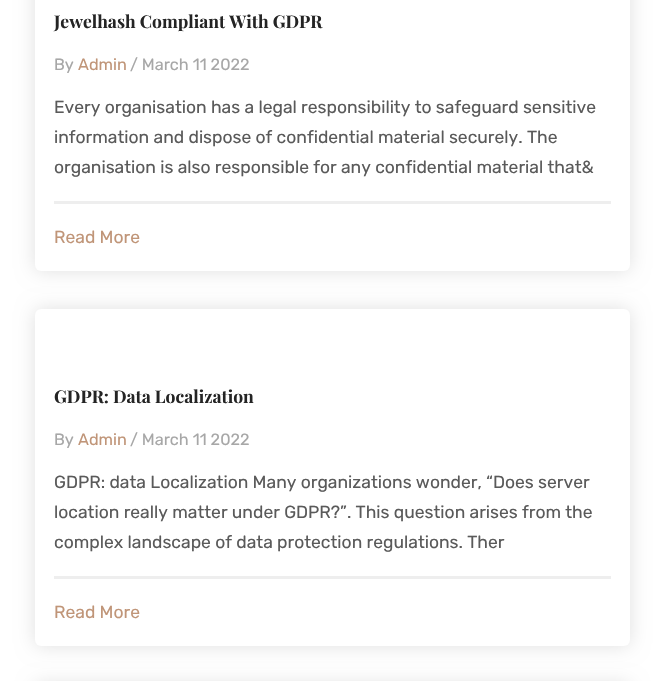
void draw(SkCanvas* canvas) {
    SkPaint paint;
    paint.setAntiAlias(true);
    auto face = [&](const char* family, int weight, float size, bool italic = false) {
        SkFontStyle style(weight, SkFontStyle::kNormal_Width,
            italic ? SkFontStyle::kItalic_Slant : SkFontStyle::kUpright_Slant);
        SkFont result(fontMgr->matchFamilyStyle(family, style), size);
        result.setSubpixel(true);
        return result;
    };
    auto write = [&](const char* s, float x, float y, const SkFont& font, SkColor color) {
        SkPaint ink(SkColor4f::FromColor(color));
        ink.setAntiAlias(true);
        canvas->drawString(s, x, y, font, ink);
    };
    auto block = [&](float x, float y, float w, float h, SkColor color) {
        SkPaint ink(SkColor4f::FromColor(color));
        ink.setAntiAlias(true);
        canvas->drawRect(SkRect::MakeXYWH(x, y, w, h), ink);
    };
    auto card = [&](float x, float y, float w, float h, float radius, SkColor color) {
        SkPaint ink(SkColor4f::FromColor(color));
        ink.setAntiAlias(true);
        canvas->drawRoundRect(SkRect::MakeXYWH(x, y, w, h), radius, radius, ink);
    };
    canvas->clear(SK_ColorWHITE);
    paint.setColor(SkColorSetARGB(31, 0, 0, 0));
    paint.setMaskFilter(SkMaskFilter::MakeBlur(kNormal_SkBlurStyle, 9.5f));
    canvas->drawRoundRect(SkRect::MakeXYWH(35, -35, 595, 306), 6, 6, paint);
    paint.setMaskFilter(nullptr);
    card(35, -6, 595, 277, 6, SK_ColorWHITE);
    auto kFont1 = face("Playfair Display", 700, 17.5f);
    write("Jewelhash Compliant With GDPR", 54, 28, kFont1, SkColorSetRGB(36, 36, 36));
    auto kFont2 = face("Rubik", 400, 16.25f);
    write("By", 54, 70, kFont2, SkColorSetRGB(167, 167, 167));
    write("Admin", 78, 70, kFont2, SkColorSetRGB(192, 149, 120));
    write("/ March 11 2022", 130, 70, kFont2, SkColorSetRGB(167, 167, 167));
    auto kFont3 = face("Rubik", 400, 17.5f);
    write("Every organisation has a legal responsibility to safeguard sensitive", 54, 113, kFont3, SkColorSetRGB(90, 90, 90));
    write("information and dispose of confidential material securely. The", 54, 143, kFont3, SkColorSetRGB(90, 90, 90));
    write("organisation is also responsible for any confidential material that&", 54, 173, kFont3, SkColorSetRGB(90, 90, 90));
    block(54, 201, 557, 3, SkColorSetRGB(238, 238, 238));
    write("Read More", 54, 243, kFont3, SkColorSetRGB(192, 149, 120));
    paint.setMaskFilter(SkMaskFilter::MakeBlur(kNormal_SkBlurStyle, 9.5f));
    canvas->drawRoundRect(SkRect::MakeXYWH(35, 309, 595, 337), 6, 6, paint);
    paint.setMaskFilter(nullptr);
    card(35, 309, 595, 337, 6, SK_ColorWHITE);
    write("GDPR: Data Localization", 54, 403, kFont1, SkColorSetRGB(36, 36, 36));
    write("By", 54, 445, kFont2, SkColorSetRGB(167, 167, 167));
    write("Admin", 78, 445, kFont2, SkColorSetRGB(192, 149, 120));
    write("/ March 11 2022", 130, 445, kFont2, SkColorSetRGB(167, 167, 167));
    write("GDPR: data Localization Many organizations wonder, “Does server", 54, 488, kFont3, SkColorSetRGB(90, 90, 90));
    write("location really matter under GDPR?”. This question arises from the", 54, 518, kFont3, SkColorSetRGB(90, 90, 90));
    write("complex landscape of data protection regulations. Ther", 54, 548, kFont3, SkColorSetRGB(90, 90, 90));
    block(54, 576, 557, 3, SkColorSetRGB(238, 238, 238));
    write("Read More", 54, 618, kFont3, SkColorSetRGB(192, 149, 120));
    paint.setMaskFilter(SkMaskFilter::MakeBlur(kNormal_SkBlurStyle, 9.5f));
    canvas->drawRoundRect(SkRect::MakeXYWH(35, 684, 595, 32), 6, 6, paint);
    paint.setMaskFilter(nullptr);
}
